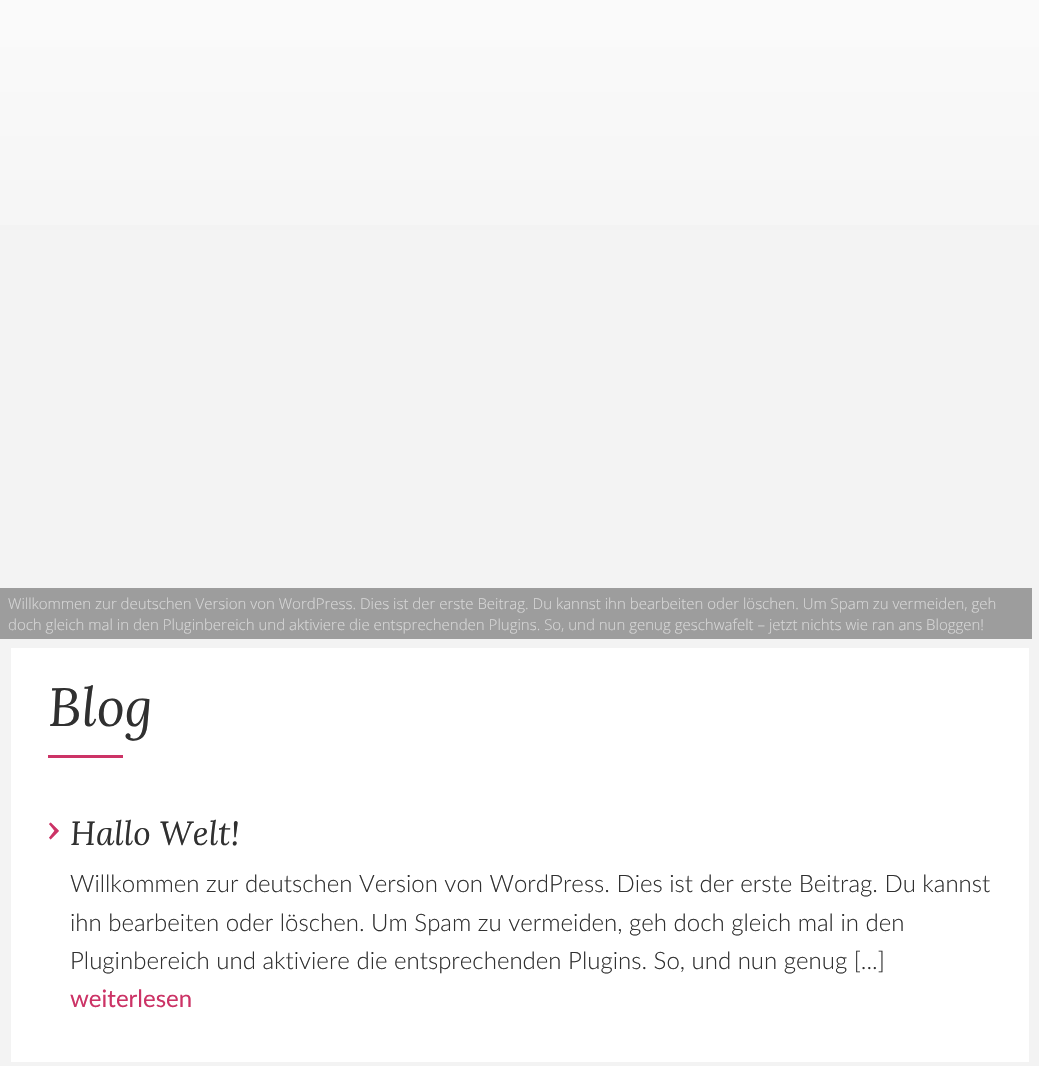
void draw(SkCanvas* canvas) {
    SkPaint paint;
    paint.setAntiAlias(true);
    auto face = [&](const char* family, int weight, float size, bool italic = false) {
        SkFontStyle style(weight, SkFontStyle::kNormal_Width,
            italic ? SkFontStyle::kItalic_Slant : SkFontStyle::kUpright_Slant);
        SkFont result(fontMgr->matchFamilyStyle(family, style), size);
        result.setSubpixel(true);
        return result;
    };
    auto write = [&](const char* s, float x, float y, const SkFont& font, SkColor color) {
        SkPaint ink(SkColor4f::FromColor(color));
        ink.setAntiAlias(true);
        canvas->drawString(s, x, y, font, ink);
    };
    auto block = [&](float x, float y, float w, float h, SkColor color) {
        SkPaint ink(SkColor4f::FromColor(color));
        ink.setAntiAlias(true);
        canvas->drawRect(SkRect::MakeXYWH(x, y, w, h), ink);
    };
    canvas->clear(SkColorSetRGB(243, 243, 243));
    {
        const SkColor colors[] = {SkColorSetRGB(251, 251, 251), SkColorSetRGB(250, 250, 250), SkColorSetRGB(241, 241, 241), SkColorSetRGB(241, 241, 241)};
        const float stops[] = {0, 0.2f, 0.65f, 1};
        const SkPoint ends[] = {{520, -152}, {520, 734}};
        paint.setShader(SkGradientShader::MakeLinear(ends, colors, stops, 4, SkTileMode::kClamp));
        paint.setAlpha(255);
    }
    canvas->drawRect(SkRect::MakeXYWH(0, 0, 1039, 225), paint);
    block(0, 588, 1032, 51, SkColorSetRGB(157, 157, 157));
    auto kFont1 = face("Open Sans", 300, 15);
    write("Willkommen zur deutschen Version von WordPress. Dies ist der erste Beitrag. Du kannst ihn bearbeiten oder löschen. Um Spam zu vermeiden, geh", 8, 609, kFont1, SkColorSetRGB(215, 215, 215));
    write("doch gleich mal in den Pluginbereich und aktiviere die entsprechenden Plugins. So, und nun genug geschwafelt – jetzt nichts wie ran ans Bloggen!", 8, 630, kFont1, SkColorSetRGB(215, 215, 215));
    block(11, 648, 1018, 414, SK_ColorWHITE);
    auto kFont2 = face("Lora", 400, 54, true);
    write("Blog", 48, 726, kFont2, SkColorSetRGB(48, 48, 48));
    block(48, 755, 75, 3, SkColorSetRGB(204, 51, 102));
    auto kFont3 = face("Lora", 700, 30);
    write("›", 48, 839, kFont3, SkColorSetRGB(204, 51, 102));
    auto kFont4 = face("Lora", 400, 33.5f, true);
    write("Hallo Welt!", 70, 845, kFont4, SkColorSetRGB(48, 48, 48));
    auto kFont5 = face("Lato", 300, 24);
    write("Willkommen zur deutschen Version von WordPress. Dies ist der erste Beitrag. Du kannst", 70, 892, kFont5, SkColorSetRGB(48, 48, 48));
    write("ihn bearbeiten oder löschen. Um Spam zu vermeiden, geh doch gleich mal in den", 70, 931, kFont5, SkColorSetRGB(48, 48, 48));
    write("Pluginbereich und aktiviere die entsprechenden Plugins. So, und nun genug [...]", 70, 969, kFont5, SkColorSetRGB(48, 48, 48));
    auto kFont6 = face("Lato", 400, 24);
    write("weiterlesen", 70, 1007, kFont6, SkColorSetRGB(204, 51, 102));
}
